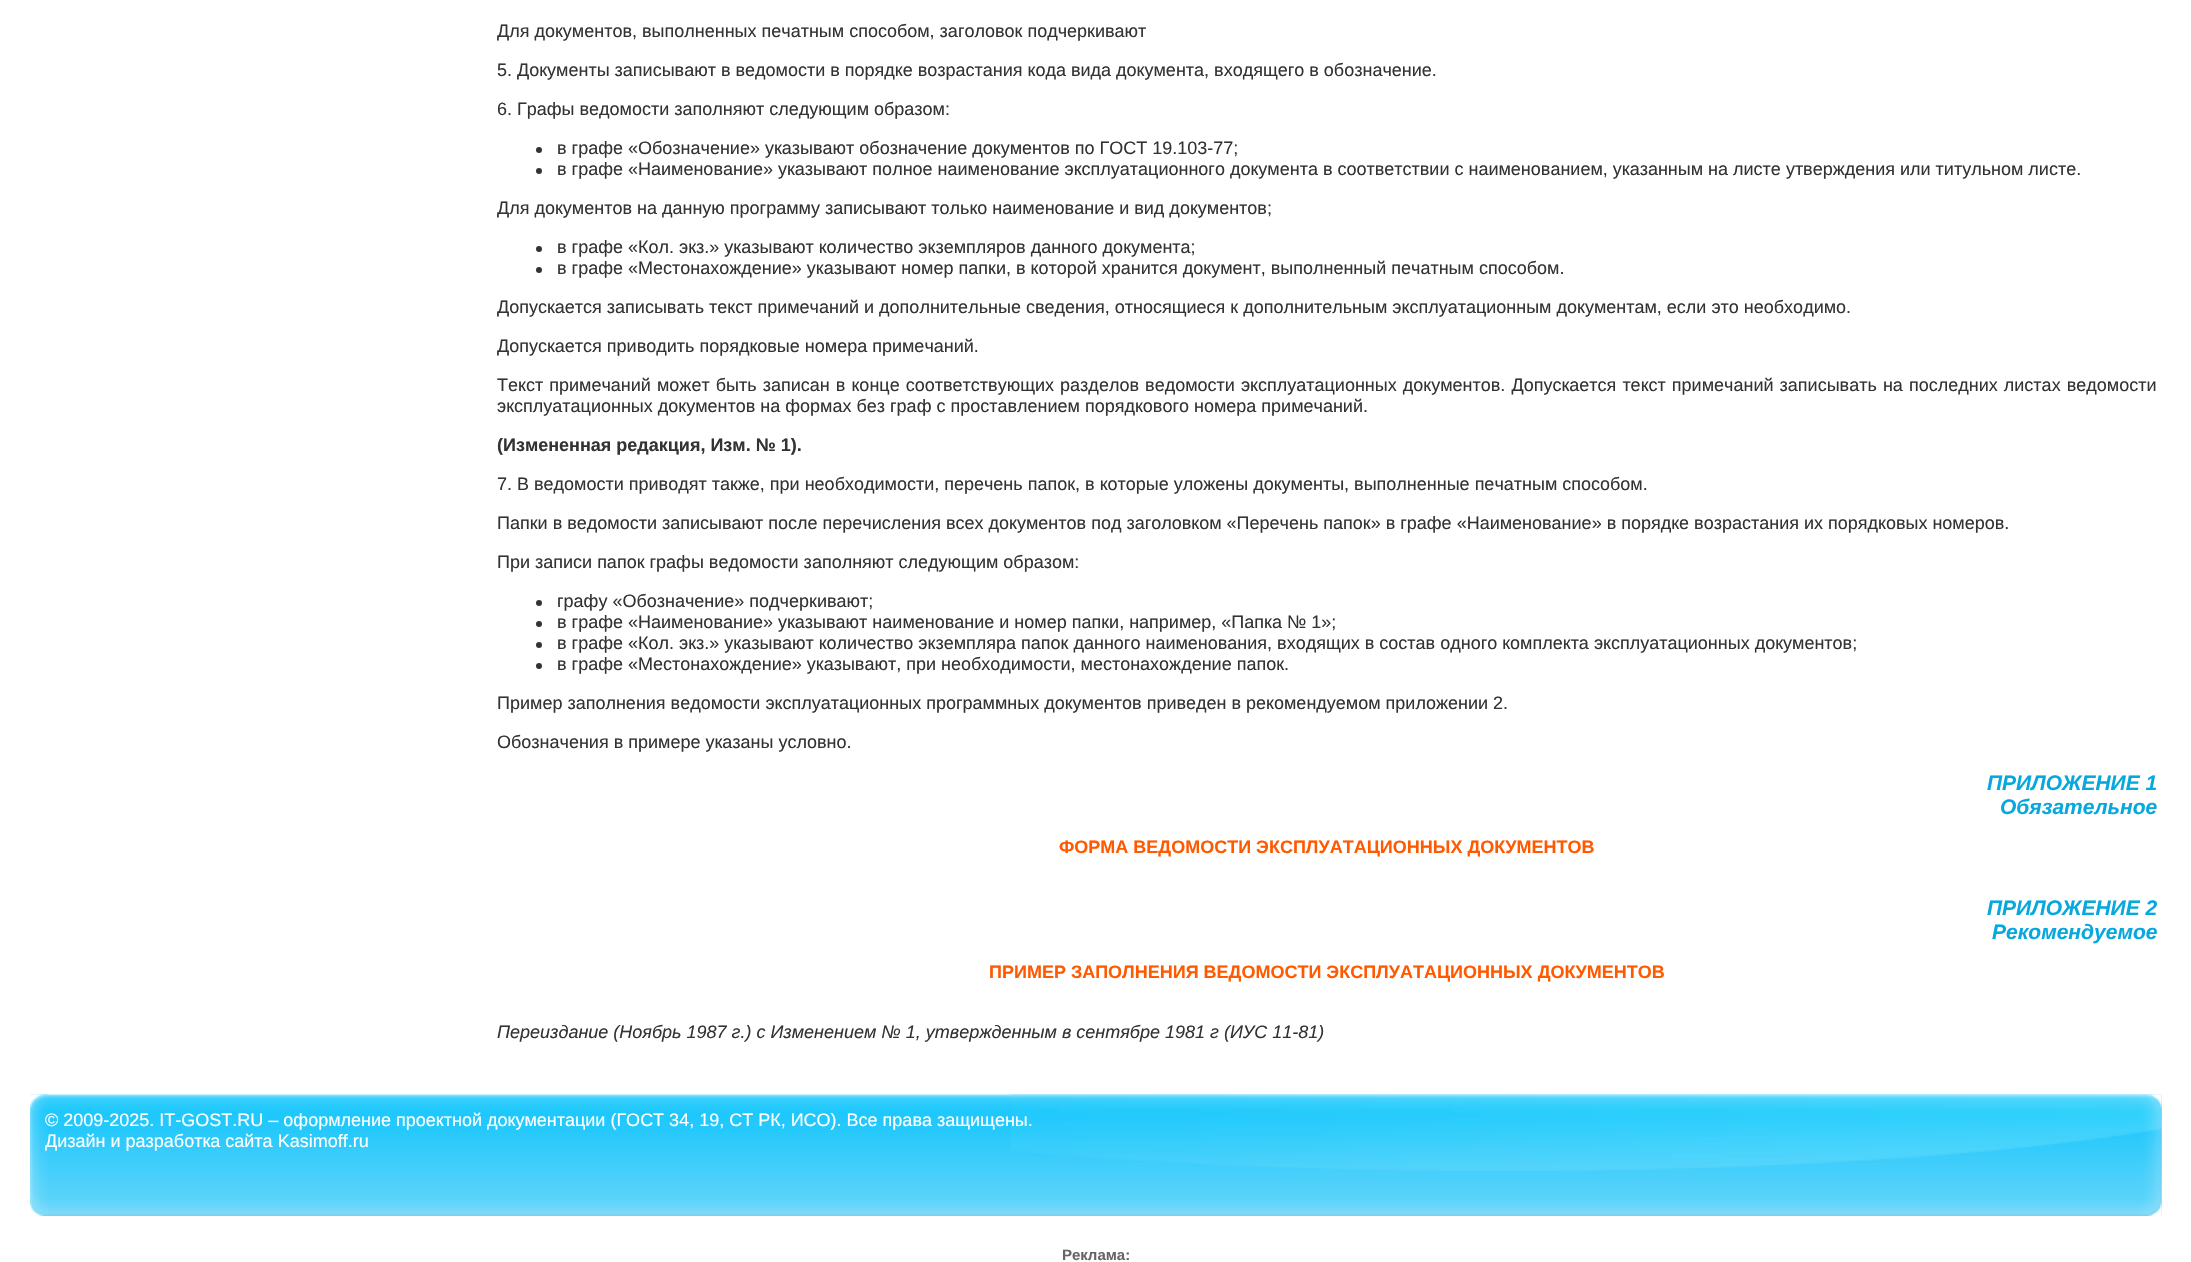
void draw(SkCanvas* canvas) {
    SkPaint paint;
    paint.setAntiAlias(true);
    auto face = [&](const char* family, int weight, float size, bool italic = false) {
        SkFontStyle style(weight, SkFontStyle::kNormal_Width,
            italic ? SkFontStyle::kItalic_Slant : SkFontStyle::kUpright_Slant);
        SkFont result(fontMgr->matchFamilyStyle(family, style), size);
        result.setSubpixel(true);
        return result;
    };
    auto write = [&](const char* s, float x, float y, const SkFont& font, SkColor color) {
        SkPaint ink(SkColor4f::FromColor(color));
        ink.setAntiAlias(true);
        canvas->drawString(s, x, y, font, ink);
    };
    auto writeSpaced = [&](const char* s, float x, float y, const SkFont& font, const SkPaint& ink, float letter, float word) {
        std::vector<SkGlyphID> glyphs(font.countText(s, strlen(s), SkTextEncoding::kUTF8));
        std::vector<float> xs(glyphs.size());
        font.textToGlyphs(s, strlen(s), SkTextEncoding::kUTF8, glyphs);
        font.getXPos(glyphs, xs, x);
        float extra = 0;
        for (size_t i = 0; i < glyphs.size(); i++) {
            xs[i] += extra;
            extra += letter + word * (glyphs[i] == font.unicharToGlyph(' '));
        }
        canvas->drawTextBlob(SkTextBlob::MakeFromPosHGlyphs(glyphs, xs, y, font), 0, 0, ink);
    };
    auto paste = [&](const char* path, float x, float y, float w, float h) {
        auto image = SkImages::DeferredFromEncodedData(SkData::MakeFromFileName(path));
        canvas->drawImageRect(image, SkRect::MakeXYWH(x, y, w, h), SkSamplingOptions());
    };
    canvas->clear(SK_ColorWHITE);
    auto kFont1 = face("Liberation Sans", 400, 18);
    write("Для документов, выполненных печатным способом, заголовок подчеркивают", 497, 37, kFont1, SkColorSetRGB(51, 51, 51));
    write("5. Документы записывают в ведомости в порядке возрастания кода вида документа, входящего в обозначение.", 497, 76, kFont1, SkColorSetRGB(51, 51, 51));
    write("6. Графы ведомости заполняют следующим образом:", 497, 115, kFont1, SkColorSetRGB(51, 51, 51));
    paint.setColor(SkColorSetRGB(51, 51, 51));
    canvas->drawCircle(539, 150, 3, paint);
    write("в графе «Обозначение» указывают обозначение документов по ГОСТ 19.103-77;", 557, 154, kFont1, SkColorSetRGB(51, 51, 51));
    canvas->drawCircle(539, 171, 3, paint);
    write("в графе «Наименование» указывают полное наименование эксплуатационного документа в соответствии с наименованием, указанным на листе утверждения или титульном листе.", 557, 175, kFont1, SkColorSetRGB(51, 51, 51));
    write("Для документов на данную программу записывают только наименование и вид документов;", 497, 214, kFont1, SkColorSetRGB(51, 51, 51));
    canvas->drawCircle(539, 249, 3, paint);
    write("в графе «Кол. экз.» указывают количество экземпляров данного документа;", 557, 253, kFont1, SkColorSetRGB(51, 51, 51));
    canvas->drawCircle(539, 270, 3, paint);
    write("в графе «Местонахождение» указывают номер папки, в которой хранится документ, выполненный печатным способом.", 557, 274, kFont1, SkColorSetRGB(51, 51, 51));
    write("Допускается записывать текст примечаний и дополнительные сведения, относящиеся к дополнительным эксплуатационным документам, если это необходимо.", 497, 313, kFont1, SkColorSetRGB(51, 51, 51));
    write("Допускается приводить порядковые номера примечаний.", 497, 352, kFont1, SkColorSetRGB(51, 51, 51));
    writeSpaced("Текст примечаний может быть записан в конце соответствующих разделов ведомости эксплуатационных документов. Допускается текст примечаний записывать на последних листах ведомости", 497, 391, kFont1, paint, 0, 1.1f);
    write("эксплуатационных документов на формах без граф с проставлением порядкового номера примечаний.", 497, 412, kFont1, SkColorSetRGB(51, 51, 51));
    auto kFont2 = face("Liberation Sans", 700, 18);
    write("(Измененная редакция, Изм. № 1).", 497, 451, kFont2, SkColorSetRGB(51, 51, 51));
    write("7. В ведомости приводят также, при необходимости, перечень папок, в которые уложены документы, выполненные печатным способом.", 497, 490, kFont1, SkColorSetRGB(51, 51, 51));
    write("Папки в ведомости записывают после перечисления всех документов под заголовком «Перечень папок» в графе «Наименование» в порядке возрастания их порядковых номеров.", 497, 529, kFont1, SkColorSetRGB(51, 51, 51));
    write("При записи папок графы ведомости заполняют следующим образом:", 497, 568, kFont1, SkColorSetRGB(51, 51, 51));
    canvas->drawCircle(539, 603, 3, paint);
    write("графу «Обозначение» подчеркивают;", 557, 607, kFont1, SkColorSetRGB(51, 51, 51));
    canvas->drawCircle(539, 624, 3, paint);
    write("в графе «Наименование» указывают наименование и номер папки, например, «Папка № 1»;", 557, 628, kFont1, SkColorSetRGB(51, 51, 51));
    canvas->drawCircle(539, 645, 3, paint);
    write("в графе «Кол. экз.» указывают количество экземпляра папок данного наименования, входящих в состав одного комплекта эксплуатационных документов;", 557, 649, kFont1, SkColorSetRGB(51, 51, 51));
    canvas->drawCircle(539, 666, 3, paint);
    write("в графе «Местонахождение» указывают, при необходимости, местонахождение папок.", 557, 670, kFont1, SkColorSetRGB(51, 51, 51));
    write("Пример заполнения ведомости эксплуатационных программных документов приведен в рекомендуемом приложении 2.", 497, 709, kFont1, SkColorSetRGB(51, 51, 51));
    write("Обозначения в примере указаны условно.", 497, 748, kFont1, SkColorSetRGB(51, 51, 51));
    auto kFont3 = face("Liberation Sans", 700, 21, true);
    write("ПРИЛОЖЕНИЕ 1", 1987, 790, kFont3, SkColorSetRGB(7, 168, 222));
    write("Обязательное", 2000, 814, kFont3, SkColorSetRGB(7, 168, 222));
    write("ФОРМА ВЕДОМОСТИ ЭКСПЛУАТАЦИОННЫХ ДОКУМЕНТОВ", 1059, 853, kFont2, SkColorSetRGB(255, 90, 0));
    write("ПРИЛОЖЕНИЕ 2", 1987, 915, kFont3, SkColorSetRGB(7, 168, 222));
    write("Рекомендуемое", 1992, 939, kFont3, SkColorSetRGB(7, 168, 222));
    write("ПРИМЕР ЗАПОЛНЕНИЯ ВЕДОМОСТИ ЭКСПЛУАТАЦИОННЫХ ДОКУМЕНТОВ", 989, 978, kFont2, SkColorSetRGB(255, 90, 0));
    auto kFont4 = face("Liberation Sans", 400, 18, true);
    write("Переиздание (Ноябрь 1987 г.) с Изменением № 1, утвержденным в сентябре 1981 г (ИУС 11-81)", 497, 1038, kFont4, SkColorSetRGB(51, 51, 51));
    paste("pic1.png", 30, 1094, 2132, 122);
    paste("pic2.png", 1011, 1094, 1151, 122);
    paste("pic3.png", 30, 1094, 18, 122);
    write("© 2009-2025. IT-GOST.RU – оформление проектной документации (ГОСТ 34, 19, СТ РК, ИСО). Все права защищены.", 45, 1126, kFont1, SK_ColorWHITE);
    write("Дизайн и разработка сайта Kasimoff.ru", 45, 1147, kFont1, SK_ColorWHITE);
    auto kFont5 = face("Liberation Sans", 700, 15);
    write("Реклама:", 1062, 1260, kFont5, SkColorSetRGB(102, 102, 102));
}
